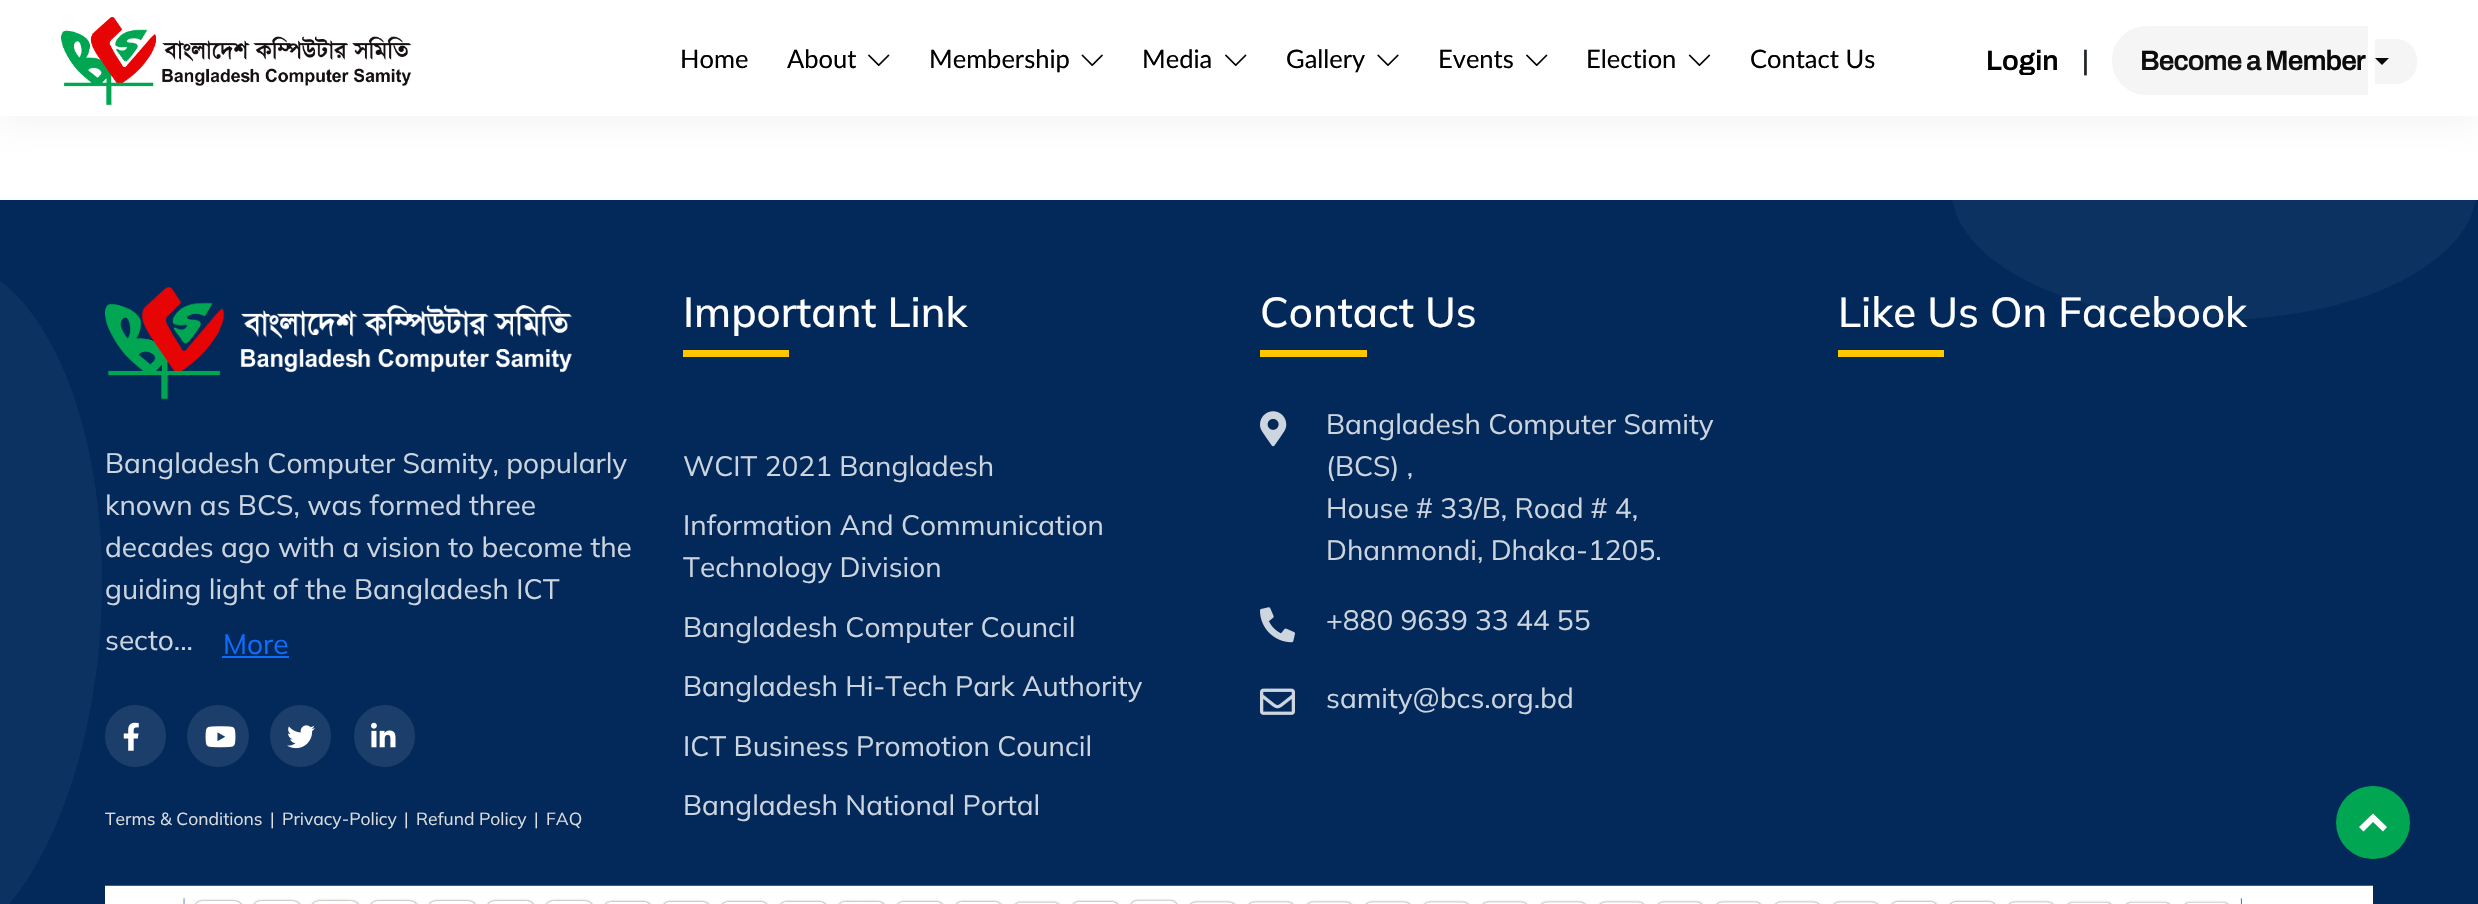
void draw(SkCanvas* canvas) {
    SkPaint paint;
    paint.setAntiAlias(true);
    auto face = [&](const char* family, int weight, float size, bool italic = false) {
        SkFontStyle style(weight, SkFontStyle::kNormal_Width,
            italic ? SkFontStyle::kItalic_Slant : SkFontStyle::kUpright_Slant);
        SkFont result(fontMgr->matchFamilyStyle(family, style), size);
        result.setSubpixel(true);
        return result;
    };
    auto write = [&](const char* s, float x, float y, const SkFont& font, SkColor color) {
        SkPaint ink(SkColor4f::FromColor(color));
        ink.setAntiAlias(true);
        canvas->drawString(s, x, y, font, ink);
    };
    auto writeSpaced = [&](const char* s, float x, float y, const SkFont& font, const SkPaint& ink, float letter, float word) {
        std::vector<SkGlyphID> glyphs(font.countText(s, strlen(s), SkTextEncoding::kUTF8));
        std::vector<float> xs(glyphs.size());
        font.textToGlyphs(s, strlen(s), SkTextEncoding::kUTF8, glyphs);
        font.getXPos(glyphs, xs, x);
        float extra = 0;
        for (size_t i = 0; i < glyphs.size(); i++) {
            xs[i] += extra;
            extra += letter + word * (glyphs[i] == font.unicharToGlyph(' '));
        }
        canvas->drawTextBlob(SkTextBlob::MakeFromPosHGlyphs(glyphs, xs, y, font), 0, 0, ink);
    };
    auto block = [&](float x, float y, float w, float h, SkColor color) {
        SkPaint ink(SkColor4f::FromColor(color));
        ink.setAntiAlias(true);
        canvas->drawRect(SkRect::MakeXYWH(x, y, w, h), ink);
    };
    auto card = [&](float x, float y, float w, float h, float radius, SkColor color) {
        SkPaint ink(SkColor4f::FromColor(color));
        ink.setAntiAlias(true);
        canvas->drawRoundRect(SkRect::MakeXYWH(x, y, w, h), radius, radius, ink);
    };
    auto paste = [&](const char* path, float x, float y, float w, float h) {
        auto image = SkImages::DeferredFromEncodedData(SkData::MakeFromFileName(path));
        canvas->drawImageRect(image, SkRect::MakeXYWH(x, y, w, h), SkSamplingOptions());
    };
    canvas->clear(SK_ColorWHITE);
    paint.setColor(SkColorSetARGB(64, 204, 204, 204));
    paint.setMaskFilter(SkMaskFilter::MakeBlur(kNormal_SkBlurStyle, 17.5f));
    canvas->drawRect(SkRect::MakeXYWH(0, 7, 2478, 116), paint);
    paint.setMaskFilter(nullptr);
    block(0, 0, 2478, 116, SK_ColorWHITE);
    paste("pic1.png", 61, 17, 351, 88);
    auto kFont1 = face("Lato", 400, 25.5f);
    write("Home", 680, 68, kFont1, SK_ColorBLACK);
    write("About", 787, 68, kFont1, SK_ColorBLACK);
    paste("pic2.png", 868, 54, 22, 13);
    write("Membership", 929, 68, kFont1, SK_ColorBLACK);
    paste("pic3.png", 1081, 54, 22, 13);
    write("Media", 1142, 68, kFont1, SK_ColorBLACK);
    paste("pic2.png", 1225, 54, 22, 13);
    write("Gallery", 1286, 68, kFont1, SK_ColorBLACK);
    paste("pic4.png", 1377, 54, 22, 12);
    write("Events", 1438, 68, kFont1, SK_ColorBLACK);
    paste("pic2.png", 1526, 54, 22, 13);
    write("Election", 1586, 68, kFont1, SK_ColorBLACK);
    paste("pic5.png", 1688, 54, 23, 13);
    write("Contact Us", 1750, 68, kFont1, SK_ColorBLACK);
    auto kFont2 = face("Archivo", 600, 28);
    write("Login", 1986, 70, kFont2, SK_ColorBLACK);
    write("|", 2082, 70, kFont2, SkColorSetRGB(33, 37, 41));
    paint.setColor(SkColorSetRGB(245, 245, 245));
    canvas->drawPath(SkPathBuilder().moveTo(2146.5f, 26).lineTo(2368, 26).lineTo(2368, 95).lineTo(2146.5f, 95).cubicTo(2127.5f, 95, 2112, 79.5f, 2112, 60.5f).cubicTo(2112, 41.5f, 2127.5f, 26, 2146.5f, 26).close().detach(), paint);
    canvas->drawPath(SkPathBuilder().moveTo(2375, 39).lineTo(2396, 39).cubicTo(2407.5f, 39, 2417, 48.5f, 2417, 60).lineTo(2417, 63).cubicTo(2417, 74.5f, 2407.5f, 84, 2396, 84).lineTo(2375, 84).close().detach(), paint);
    paint.setColor(SkColorSetRGB(10, 9, 10));
    writeSpaced("Become a Member", 2140, 70, kFont2, paint, -1, 0);
    canvas->drawPath(SkPathBuilder().moveTo(2375, 58).lineTo(2389, 58).lineTo(2382, 65).close().detach(), paint);
    block(0, 200, 2478, 704, SkColorSetRGB(2, 41, 90));
    paint.setColor(SkColorSetARGB(10, 255, 255, 255));
    canvas->drawOval(SkRect::MakeXYWH(1951.5f, 58, 525, 262), paint);
    paint.setColor(SkColorSetRGB(12, 50, 97));
    canvas->drawPath(SkPathBuilder().moveTo(101, 618).cubicTo(91, 811, 5, 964, -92, 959).cubicTo(-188, 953, -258, 793, -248, 600).cubicTo(-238, 407, -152, 254, -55, 259).cubicTo(41, 265, 111, 425, 101, 618).close().detach(), paint);
    paste("pic6.png", 105, 287, 468, 113);
    auto kFont3 = face("Mulish", 400, 28);
    write("Bangladesh Computer Samity, popularly", 105, 473, kFont3, SkColorSetRGB(204, 212, 222));
    write("known as BCS, was formed three", 105, 515, kFont3, SkColorSetRGB(204, 212, 222));
    write("decades ago with a vision to become the", 105, 557, kFont3, SkColorSetRGB(204, 212, 222));
    write("guiding light of the Bangladesh ICT", 105, 599, kFont3, SkColorSetRGB(204, 212, 222));
    write("secto...", 105, 650, kFont3, SkColorSetRGB(204, 212, 222));
    write("More", 223, 654, kFont3, SkColorSetRGB(13, 110, 253));
    block(222, 656, 67, 2, SkColorSetRGB(13, 110, 253));
    card(105, 705, 61, 62, 30.5f, SkColorSetRGB(27, 62, 106));
    paste("pic7.png", 123, 722, 16, 29);
    paint.setColor(SkColorSetRGB(27, 62, 106));
    canvas->drawCircle(218, 736, 31, paint);
    paste("pic8.png", 205, 726, 31, 22);
    card(270, 705, 61, 62, 30.5f, SkColorSetRGB(27, 62, 106));
    paste("pic9.png", 287, 725, 28, 24);
    card(354, 705, 61, 62, 30.5f, SkColorSetRGB(27, 62, 106));
    paste("pic10.png", 371, 722, 25, 26);
    auto kFont4 = face("Mulish", 400, 17.5f);
    write("Terms & Conditions", 105, 825, kFont4, SkColorSetRGB(221, 221, 221));
    write("|", 270, 825, kFont4, SkColorSetRGB(221, 221, 221));
    write("Privacy-Policy", 282, 825, kFont4, SkColorSetRGB(221, 221, 221));
    write("|", 404, 825, kFont4, SkColorSetRGB(221, 221, 221));
    write("Refund Policy", 416, 825, kFont4, SkColorSetRGB(221, 221, 221));
    write("|", 534, 825, kFont4, SkColorSetRGB(221, 221, 221));
    write("FAQ", 546, 825, kFont4, SkColorSetRGB(221, 221, 221));
    auto kFont5 = face("Mulish", 500, 42);
    write("Important Link", 683, 327, kFont5, SK_ColorWHITE);
    block(683, 350, 106, 7, SkColorSetRGB(255, 199, 0));
    write("WCIT 2021 Bangladesh", 683, 476, kFont3, SkColorSetRGB(204, 212, 222));
    write("Information And Communication", 683, 535, kFont3, SkColorSetRGB(204, 212, 222));
    write("Technology Division", 683, 577, kFont3, SkColorSetRGB(204, 212, 222));
    write("Bangladesh Computer Council", 683, 637, kFont3, SkColorSetRGB(204, 212, 222));
    write("Bangladesh Hi-Tech Park Authority", 683, 696, kFont3, SkColorSetRGB(204, 212, 222));
    write("ICT Business Promotion Council", 683, 756, kFont3, SkColorSetRGB(204, 212, 222));
    write("Bangladesh National Portal", 683, 815, kFont3, SkColorSetRGB(204, 212, 222));
    write("Contact Us", 1260, 327, kFont5, SK_ColorWHITE);
    block(1260, 350, 107, 7, SkColorSetRGB(255, 199, 0));
    paste("pic11.png", 1260, 411, 27, 36);
    write("Bangladesh Computer Samity", 1326, 434, kFont3, SkColorSetRGB(204, 212, 222));
    write("(BCS) ,", 1326, 476, kFont3, SkColorSetRGB(204, 212, 222));
    write("House # 33/B, Road # 4,", 1326, 518, kFont3, SkColorSetRGB(204, 212, 222));
    write("Dhanmondi, Dhaka-1205.", 1326, 560, kFont3, SkColorSetRGB(204, 212, 222));
    paste("pic12.png", 1260, 607, 35, 36);
    write("+880 9639 33 44 55", 1326, 630, kFont3, SkColorSetRGB(204, 212, 222));
    paste("pic13.png", 1260, 688, 35, 27);
    write("samity@bcs.org.bd", 1326, 708, kFont3, SkColorSetRGB(204, 212, 222));
    write("Like Us On Facebook", 1838, 327, kFont5, SK_ColorWHITE);
    block(1838, 350, 106, 7, SkColorSetRGB(255, 199, 0));
    paste("pic14.png", 105, 885, 2268, 19);
    card(2336, 786, 74, 73, 36.5f, SkColorSetRGB(0, 166, 81));
    paint.setColor(SK_ColorWHITE);
    canvas->drawPath(SkPathBuilder().moveTo(2373, 813.5f).lineTo(2387, 827).lineTo(2383, 831.5f).lineTo(2373, 822).lineTo(2363.5f, 831.5f).lineTo(2359, 827).close().detach(), paint);
}
